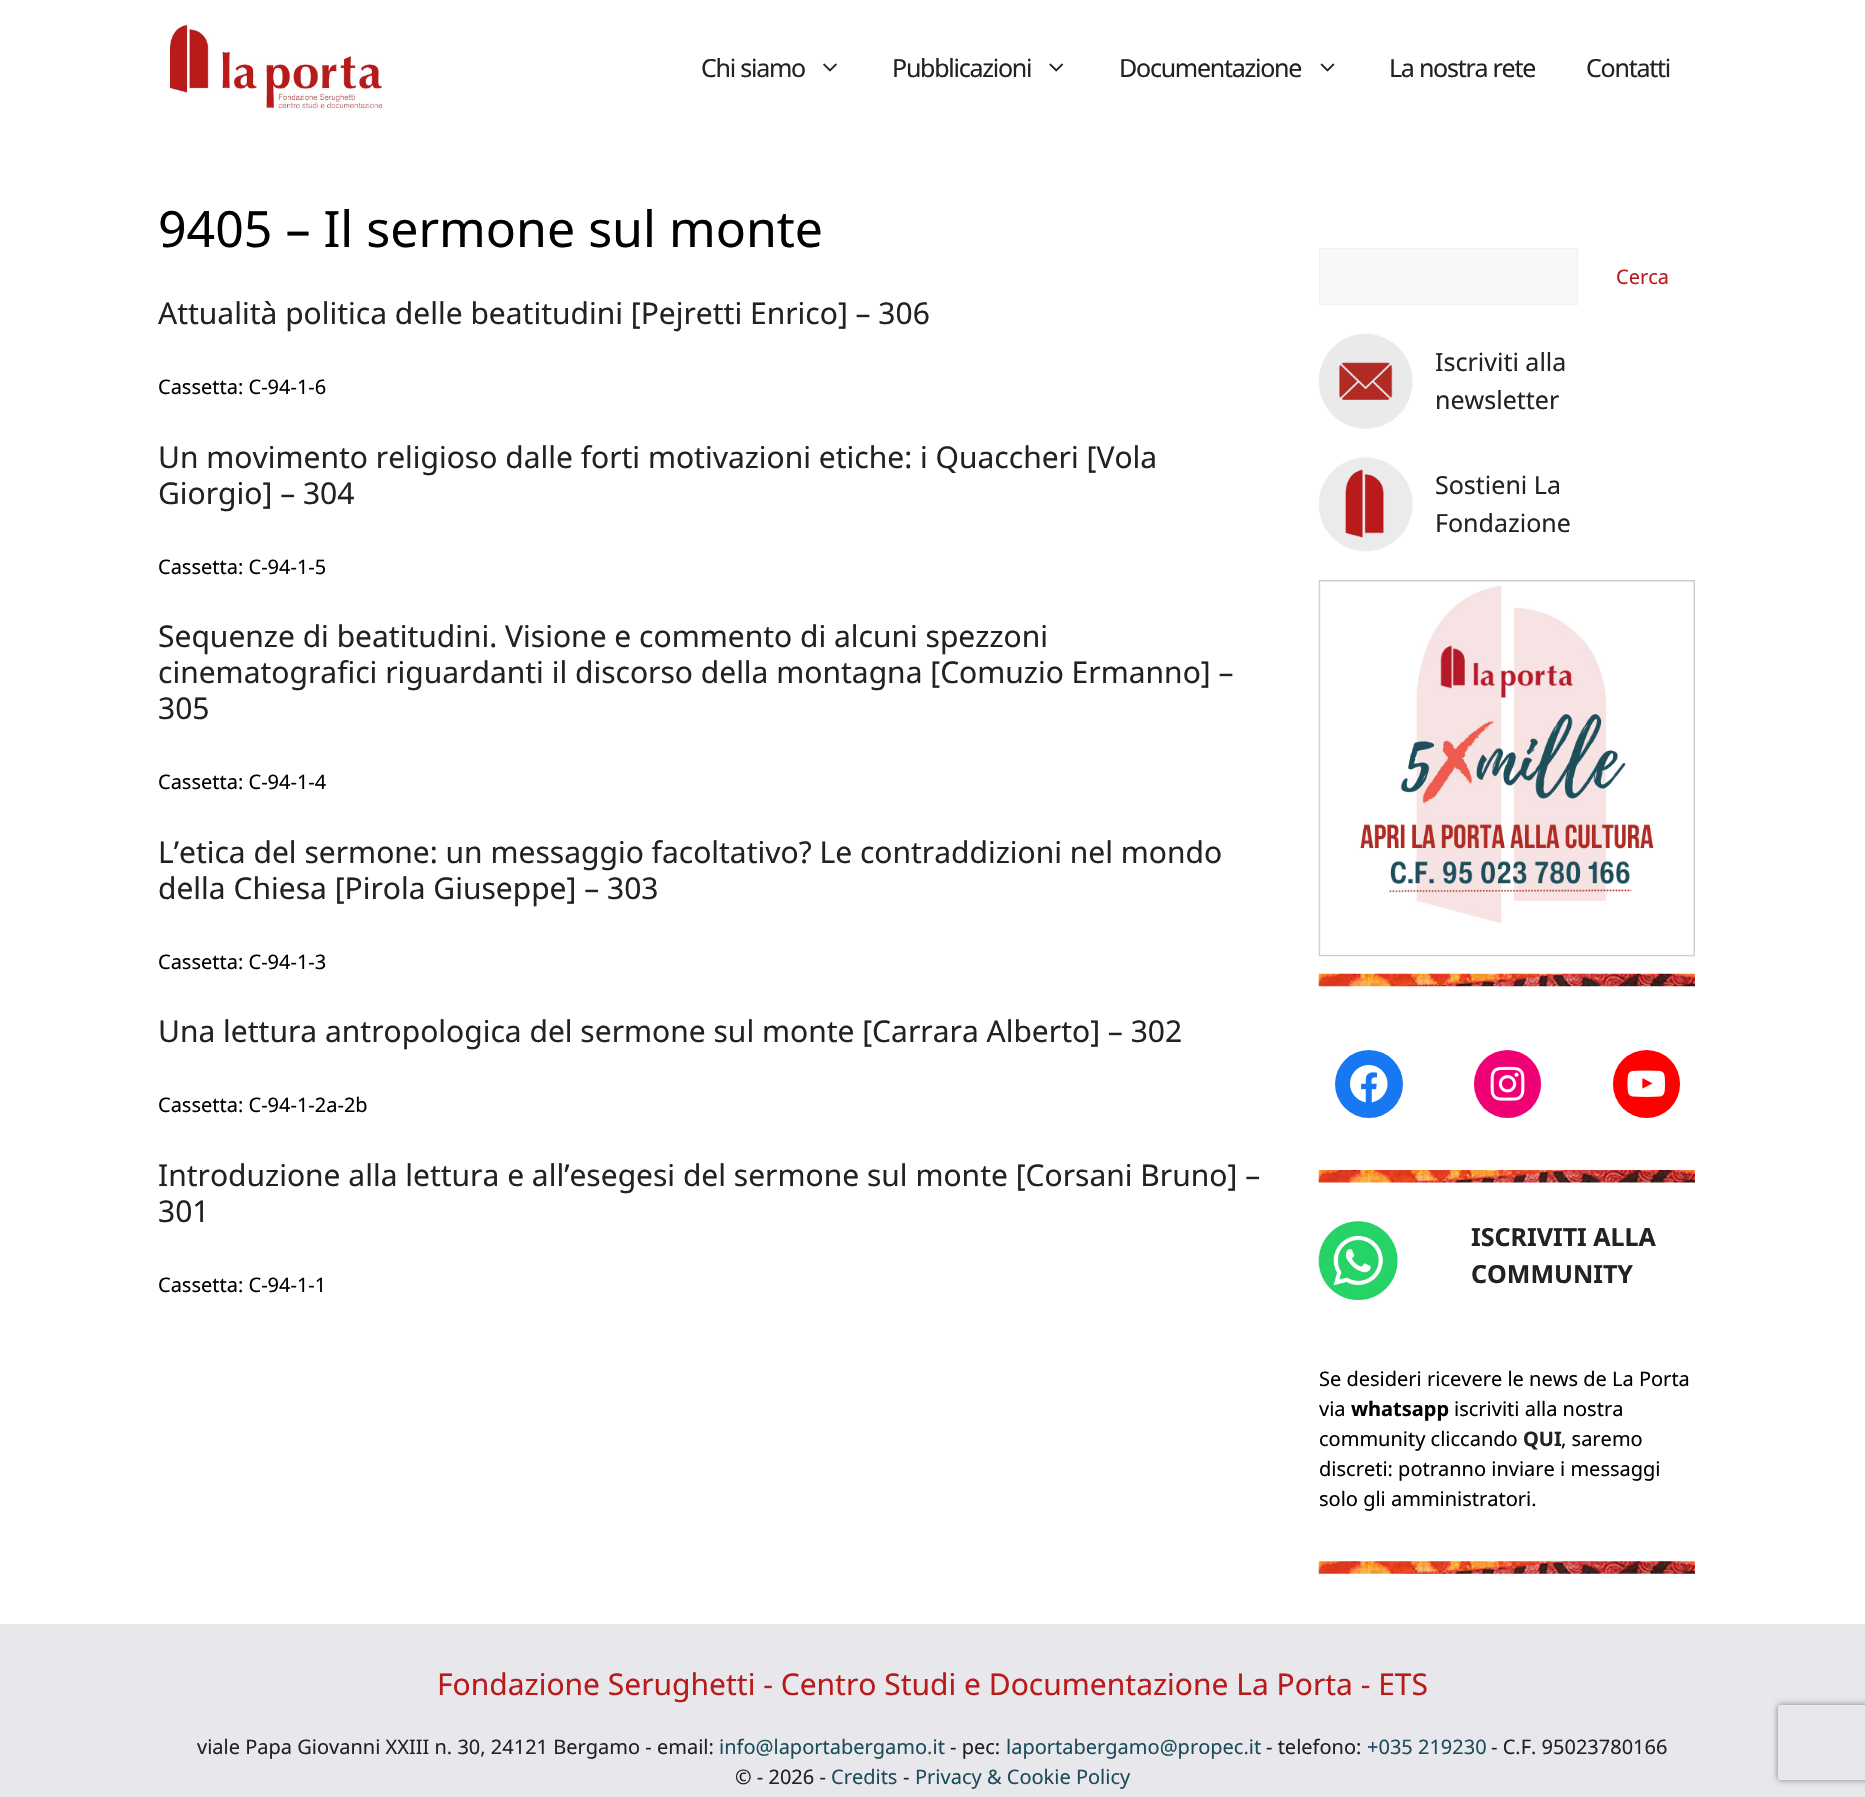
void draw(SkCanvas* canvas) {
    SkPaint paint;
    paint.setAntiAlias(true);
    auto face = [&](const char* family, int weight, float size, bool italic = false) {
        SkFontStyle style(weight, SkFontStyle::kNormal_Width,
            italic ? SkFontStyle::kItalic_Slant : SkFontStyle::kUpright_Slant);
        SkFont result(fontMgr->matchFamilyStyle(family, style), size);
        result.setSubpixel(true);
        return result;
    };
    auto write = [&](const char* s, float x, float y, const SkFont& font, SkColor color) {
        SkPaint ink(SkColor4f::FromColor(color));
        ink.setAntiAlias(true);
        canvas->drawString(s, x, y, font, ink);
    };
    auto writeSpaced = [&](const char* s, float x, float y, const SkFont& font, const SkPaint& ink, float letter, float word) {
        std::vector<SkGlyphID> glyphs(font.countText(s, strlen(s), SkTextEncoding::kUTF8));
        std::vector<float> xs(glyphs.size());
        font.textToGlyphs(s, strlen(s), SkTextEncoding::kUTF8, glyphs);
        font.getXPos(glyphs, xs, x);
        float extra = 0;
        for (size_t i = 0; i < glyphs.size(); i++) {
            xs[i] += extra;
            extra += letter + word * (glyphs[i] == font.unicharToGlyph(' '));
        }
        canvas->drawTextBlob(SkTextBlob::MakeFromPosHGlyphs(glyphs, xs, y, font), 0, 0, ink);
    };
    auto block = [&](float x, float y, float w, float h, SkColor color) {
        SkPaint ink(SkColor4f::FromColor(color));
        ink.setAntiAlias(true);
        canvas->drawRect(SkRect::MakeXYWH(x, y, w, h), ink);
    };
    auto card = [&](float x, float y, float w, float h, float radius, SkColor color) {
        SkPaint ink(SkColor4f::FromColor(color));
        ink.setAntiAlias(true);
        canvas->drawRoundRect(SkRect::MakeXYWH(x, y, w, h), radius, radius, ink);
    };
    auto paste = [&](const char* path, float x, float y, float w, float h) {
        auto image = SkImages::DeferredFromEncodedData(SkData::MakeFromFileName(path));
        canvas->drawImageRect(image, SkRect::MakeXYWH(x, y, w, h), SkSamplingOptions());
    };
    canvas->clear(SK_ColorWHITE);
    paste("pic1.png", 170, 25, 213, 85);
    auto kFont1 = face("Noto Sans", 400, 25);
    paint.setColor(SkColorSetRGB(34, 34, 34));
    writeSpaced("Chi siamo", 701, 77, kFont1, paint, -1.25f, 0);
    paste("pic2.png", 823, 63, 14, 9);
    writeSpaced("Pubblicazioni", 892, 77, kFont1, paint, -1.25f, 0);
    paste("pic3.png", 1049, 63, 15, 9);
    writeSpaced("Documentazione", 1119, 77, kFont1, paint, -1.25f, 0);
    paste("pic4.png", 1320, 63, 15, 9);
    writeSpaced("La nostra rete", 1389, 77, kFont1, paint, -1.25f, 0);
    writeSpaced("Contatti", 1586, 77, kFont1, paint, -1.25f, 0);
    auto kFont2 = face("Noto Sans", 400, 50);
    write("9405 – Il sermone sul monte", 158, 247, kFont2, SK_ColorBLACK);
    auto kFont3 = face("Noto Sans", 400, 30);
    write("Attualità politica delle beatitudini [Pejretti Enrico] – 306", 158, 324, kFont3, SkColorSetRGB(34, 34, 34));
    auto kFont4 = face("Noto Sans", 400, 20);
    write("Cassetta: C-94-1-6", 158, 394, kFont4, SK_ColorBLACK);
    write("Un movimento religioso dalle forti motivazioni etiche: i Quaccheri [Vola", 158, 468, kFont3, SkColorSetRGB(34, 34, 34));
    write("Giorgio] – 304", 158, 504, kFont3, SkColorSetRGB(34, 34, 34));
    write("Cassetta: C-94-1-5", 158, 574, kFont4, SK_ColorBLACK);
    write("Sequenze di beatitudini. Visione e commento di alcuni spezzoni", 158, 647, kFont3, SkColorSetRGB(34, 34, 34));
    write("cinematografici riguardanti il discorso della montagna [Comuzio Ermanno] –", 158, 683, kFont3, SkColorSetRGB(34, 34, 34));
    write("305", 158, 719, kFont3, SkColorSetRGB(34, 34, 34));
    write("Cassetta: C-94-1-4", 158, 789, kFont4, SK_ColorBLACK);
    write("L’etica del sermone: un messaggio facoltativo? Le contraddizioni nel mondo", 158, 863, kFont3, SkColorSetRGB(34, 34, 34));
    write("della Chiesa [Pirola Giuseppe] – 303", 158, 899, kFont3, SkColorSetRGB(34, 34, 34));
    write("Cassetta: C-94-1-3", 158, 969, kFont4, SK_ColorBLACK);
    write("Una lettura antropologica del sermone sul monte [Carrara Alberto] – 302", 158, 1042, kFont3, SkColorSetRGB(34, 34, 34));
    write("Cassetta: C-94-1-2a-2b", 158, 1112, kFont4, SK_ColorBLACK);
    write("Introduzione alla lettura e all’esegesi del sermone sul monte [Corsani Bruno] –", 158, 1186, kFont3, SkColorSetRGB(34, 34, 34));
    write("301", 158, 1222, kFont3, SkColorSetRGB(34, 34, 34));
    write("Cassetta: C-94-1-1", 158, 1292, kFont4, SK_ColorBLACK);
    paint.setColor(SkColorSetRGB(247, 248, 249));
    canvas->drawRect(SkRect::MakeXYWH(1319.5f, 248.5f, 258, 56), paint);
    paint.setStyle(SkPaint::kStroke_Style);
    paint.setStrokeWidth(1);
    paint.setColor(SkColorSetRGB(240, 240, 240));
    canvas->drawRect(SkRect::MakeXYWH(1319.5f, 248.5f, 258, 56), paint);
    write("Cerca", 1616, 284, kFont4, SkColorSetRGB(184, 27, 26));
    paste("pic5.png", 1318, 333, 95, 96);
    write("Iscriviti alla", 1435, 371, kFont1, SkColorSetRGB(34, 34, 34));
    write("newsletter", 1435, 409, kFont1, SkColorSetRGB(34, 34, 34));
    paste("pic6.png", 1318, 457, 95, 95);
    write("Sostieni La", 1435, 494, kFont1, SkColorSetRGB(34, 34, 34));
    write("Fondazione", 1435, 532, kFont1, SkColorSetRGB(34, 34, 34));
    paste("pic7.png", 1318, 580, 377, 377);
    paste("pic8.png", 1318, 973, 377, 14);
    paint.setStyle(SkPaint::kFill_Style);
    paint.setColor(SkColorSetRGB(23, 120, 242));
    canvas->drawCircle(1369, 1084, 34, paint);
    paste("pic9.png", 1350, 1065, 38, 38);
    card(1474, 1050, 67, 68, 33.5f, SkColorSetRGB(240, 0, 117));
    paste("pic10.png", 1490, 1066, 35, 35);
    card(1613, 1050, 67, 68, 33.5f, SkColorSetRGB(255, 0, 0));
    paste("pic11.png", 1627, 1070, 38, 27);
    paste("pic12.png", 1318, 1170, 377, 13);
    paste("pic13.png", 1318, 1221, 80, 79);
    auto kFont5 = face("Noto Sans", 700, 25);
    write("ISCRIVITI ALLA", 1471, 1246, kFont5, SkColorSetRGB(34, 34, 34));
    write("COMMUNITY", 1471, 1283, kFont5, SkColorSetRGB(34, 34, 34));
    write("Se desideri ricevere le news de La Porta", 1319, 1386, kFont4, SK_ColorBLACK);
    write("via", 1319, 1416, kFont4, SK_ColorBLACK);
    auto kFont6 = face("Noto Sans", 700, 20);
    write("whatsapp", 1351, 1416, kFont6, SK_ColorBLACK);
    write("iscriviti alla nostra", 1454, 1416, kFont4, SK_ColorBLACK);
    write("community cliccando", 1319, 1446, kFont4, SK_ColorBLACK);
    write("QUI", 1523, 1446, kFont6, SkColorSetRGB(34, 34, 34));
    write(", saremo", 1561, 1446, kFont4, SK_ColorBLACK);
    write("discreti: potranno inviare i messaggi", 1319, 1476, kFont4, SK_ColorBLACK);
    write("solo gli amministratori.", 1319, 1506, kFont4, SK_ColorBLACK);
    paste("pic14.png", 1318, 1561, 377, 13);
    block(0, 1624, 1865, 173, SkColorSetRGB(232, 232, 236));
    write("Fondazione Serughetti - Centro Studi e Documentazione La Porta - ETS", 437, 1695, kFont3, SkColorSetRGB(184, 27, 26));
    write("viale Papa Giovanni XXIII n. 30, 24121 Bergamo - email:", 197, 1754, kFont4, SkColorSetRGB(34, 34, 34));
    write("info@laportabergamo.it", 719, 1754, kFont4, SkColorSetRGB(29, 77, 91));
    write("- pec:", 950, 1754, kFont4, SkColorSetRGB(34, 34, 34));
    write("laportabergamo@propec.it", 1006, 1754, kFont4, SkColorSetRGB(29, 77, 91));
    write("- telefono:", 1266, 1754, kFont4, SkColorSetRGB(34, 34, 34));
    write("+035 219230", 1367, 1754, kFont4, SkColorSetRGB(29, 77, 91));
    write("- C.F. 95023780166", 1491, 1754, kFont4, SkColorSetRGB(34, 34, 34));
    write("© - 2026 -", 735, 1784, kFont4, SkColorSetRGB(34, 34, 34));
    write("Credits", 831, 1784, kFont4, SkColorSetRGB(29, 77, 91));
    write("-", 903, 1784, kFont4, SkColorSetRGB(34, 34, 34));
    write("Privacy & Cookie Policy", 915, 1784, kFont4, SkColorSetRGB(29, 77, 91));
    canvas->save();
    canvas->clipPath(SkPathBuilder(SkPathFillType::kEvenOdd).moveTo(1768, 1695).lineTo(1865, 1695).lineTo(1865, 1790).lineTo(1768, 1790).close().moveTo(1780.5f, 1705).lineTo(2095.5f, 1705).cubicTo(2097, 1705, 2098, 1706, 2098, 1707.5f).lineTo(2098, 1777.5f).cubicTo(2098, 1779, 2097, 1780, 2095.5f, 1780).lineTo(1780.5f, 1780).cubicTo(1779, 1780, 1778, 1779, 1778, 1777.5f).lineTo(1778, 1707.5f).cubicTo(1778, 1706, 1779, 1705, 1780.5f, 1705).close().detach(), true);
    paint.setColor(SkColorSetRGB(128, 128, 128));
    paint.setMaskFilter(SkMaskFilter::MakeBlur(kNormal_SkBlurStyle, 3));
    canvas->drawRoundRect(SkRect::MakeXYWH(1778, 1705, 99, 75), 2.5f, 2.5f, paint);
    paint.setMaskFilter(nullptr);
    canvas->restore();
}
